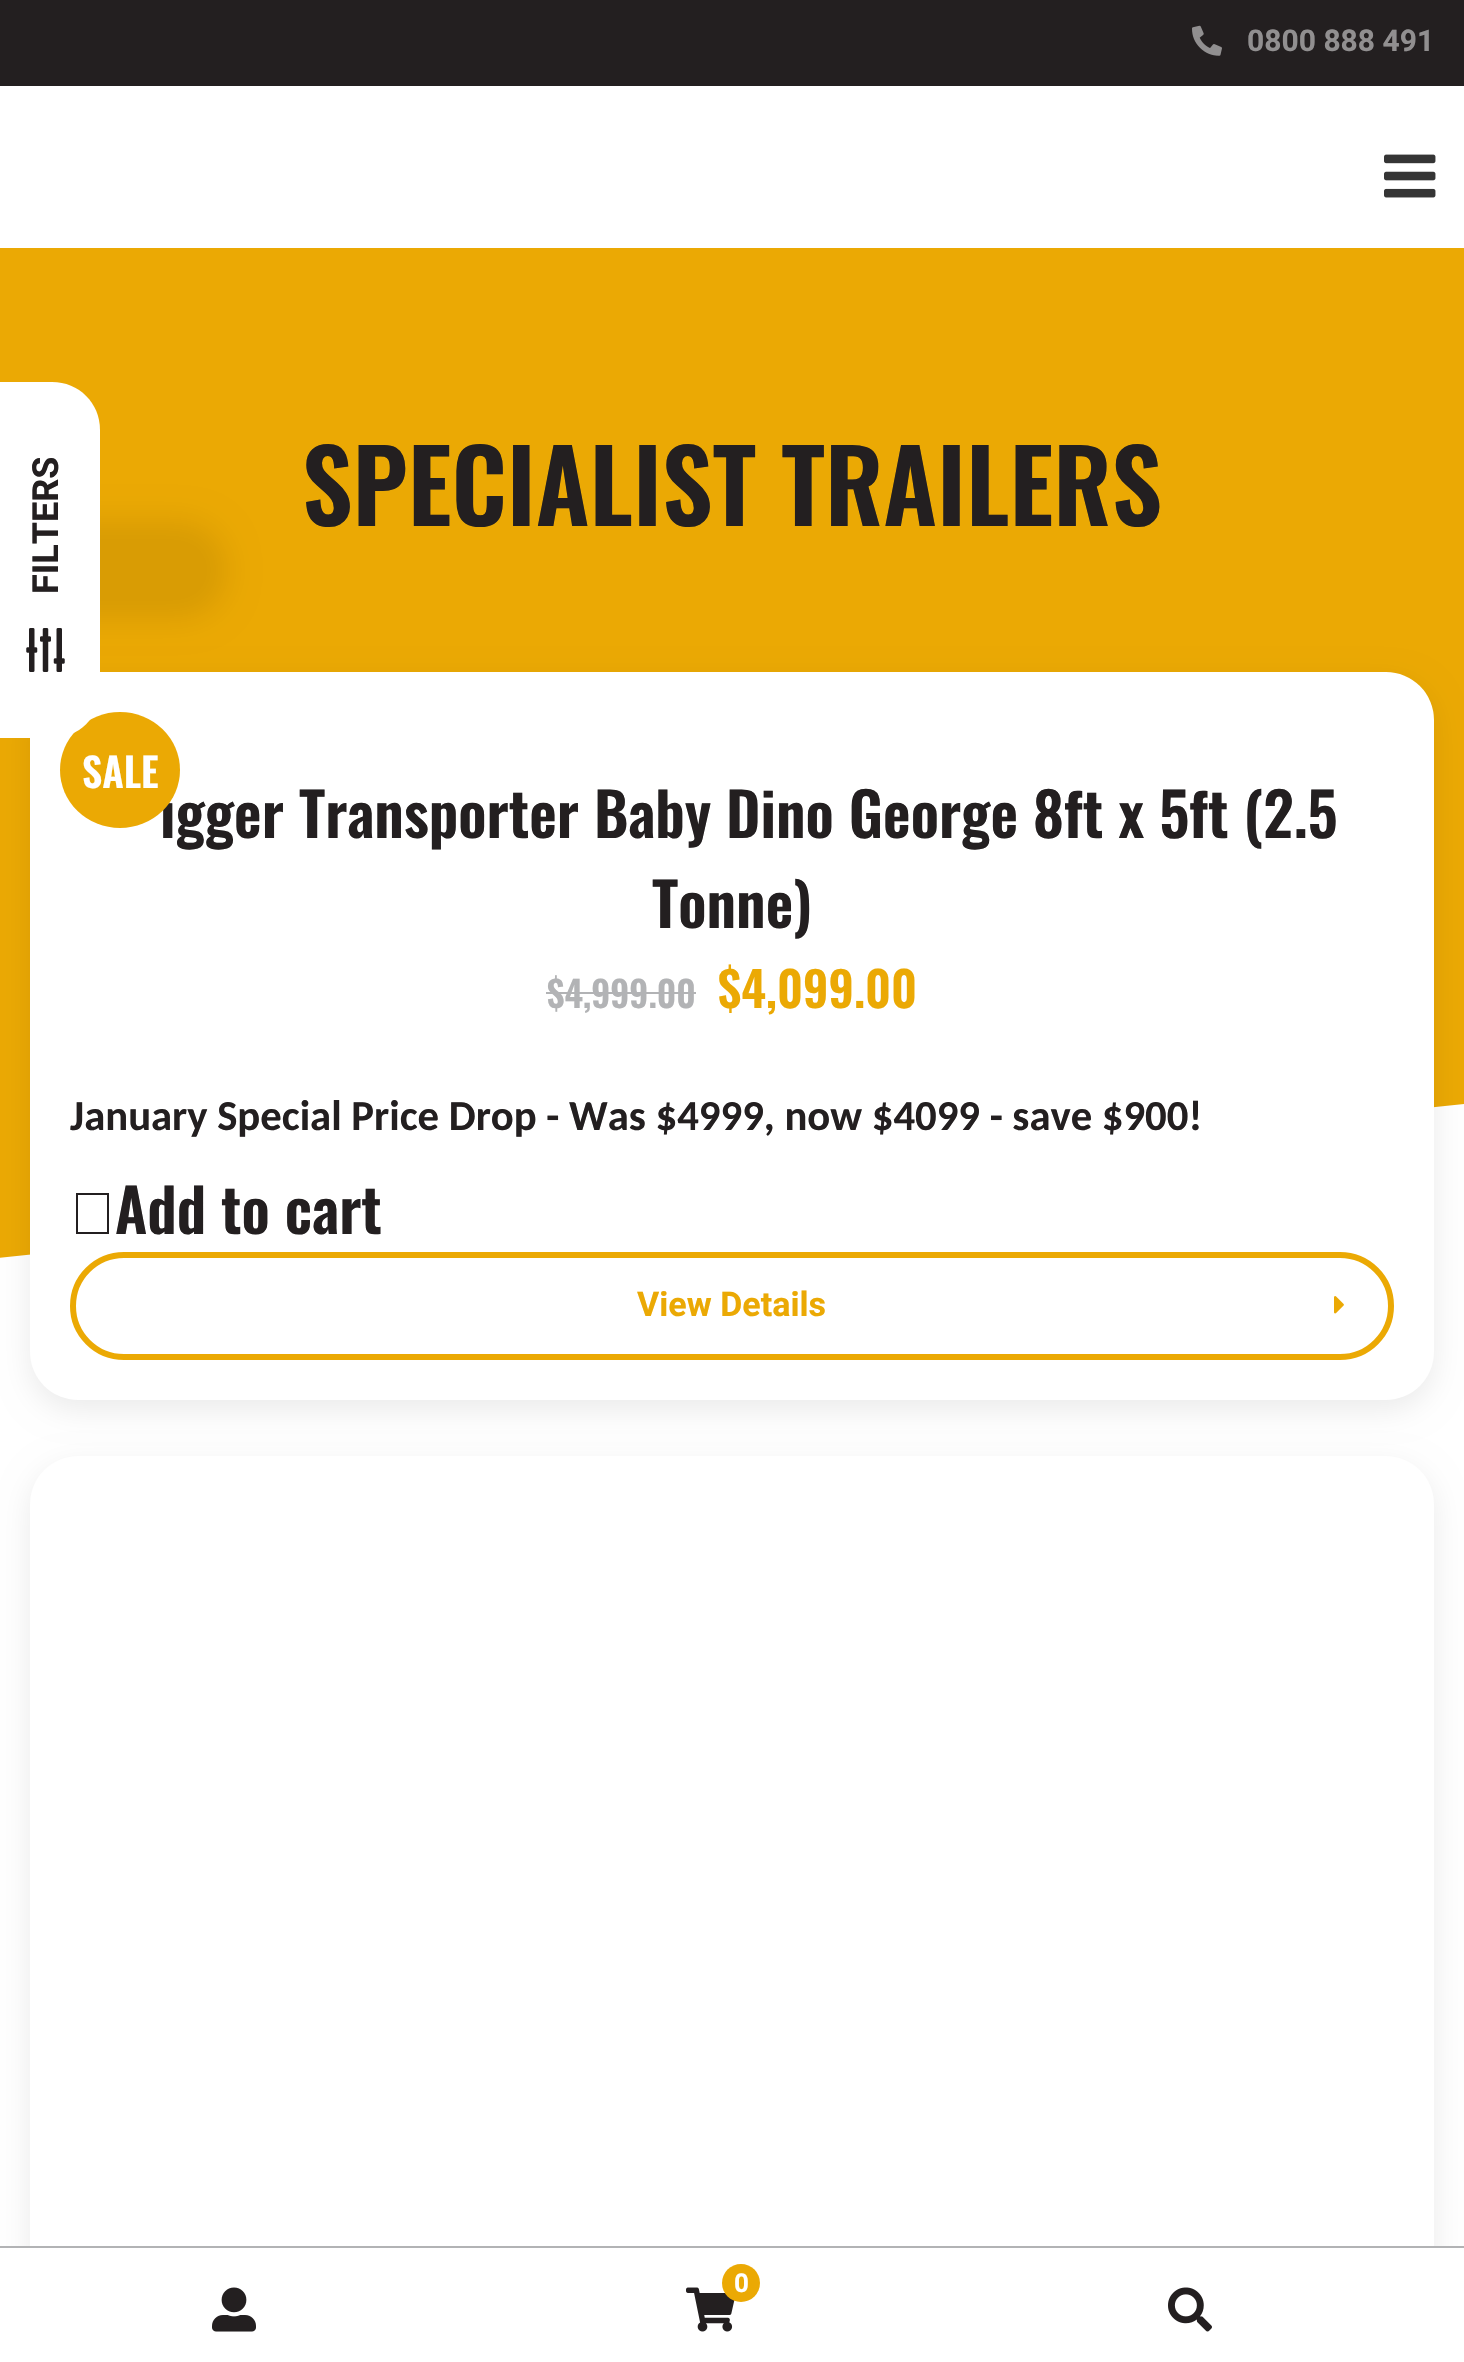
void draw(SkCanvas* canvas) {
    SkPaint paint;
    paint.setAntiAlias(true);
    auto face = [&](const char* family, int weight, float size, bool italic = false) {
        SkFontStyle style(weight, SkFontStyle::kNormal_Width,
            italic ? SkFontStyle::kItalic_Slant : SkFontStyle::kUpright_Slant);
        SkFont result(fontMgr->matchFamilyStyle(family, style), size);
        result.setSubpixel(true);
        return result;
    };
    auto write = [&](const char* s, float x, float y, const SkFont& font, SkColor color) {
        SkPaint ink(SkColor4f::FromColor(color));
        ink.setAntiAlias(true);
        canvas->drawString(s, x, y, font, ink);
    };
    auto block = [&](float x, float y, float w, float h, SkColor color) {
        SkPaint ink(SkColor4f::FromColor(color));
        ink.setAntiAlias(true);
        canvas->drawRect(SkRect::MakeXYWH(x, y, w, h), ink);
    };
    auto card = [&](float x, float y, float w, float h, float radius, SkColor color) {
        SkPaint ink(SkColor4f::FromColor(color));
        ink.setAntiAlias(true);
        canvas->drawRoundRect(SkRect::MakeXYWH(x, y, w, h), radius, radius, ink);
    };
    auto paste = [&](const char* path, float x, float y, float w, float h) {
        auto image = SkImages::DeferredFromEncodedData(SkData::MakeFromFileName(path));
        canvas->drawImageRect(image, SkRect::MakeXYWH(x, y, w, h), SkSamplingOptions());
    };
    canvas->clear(SkColorSetRGB(235, 169, 4));
    block(0, 1103, 1464, 1143, SK_ColorWHITE);
    paint.setColor(SkColorSetRGB(235, 169, 4));
    canvas->drawPath(SkPathBuilder().moveTo(-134, 467).lineTo(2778, 161).lineTo(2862, 957).lineTo(-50, 1263).close().detach(), paint);
    paint.setColor(SkColorSetARGB(20, 0, 0, 0));
    paint.setMaskFilter(SkMaskFilter::MakeBlur(kNormal_SkBlurStyle, 15));
    canvas->drawRoundRect(SkRect::MakeXYWH(-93, 520, 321, 100), 48, 48, paint);
    paint.setMaskFilter(nullptr);
    paint.setMaskFilter(SkMaskFilter::MakeBlur(kNormal_SkBlurStyle, 15));
    canvas->drawRoundRect(SkRect::MakeXYWH(30, 682, 1404, 728), 48, 48, paint);
    paint.setMaskFilter(nullptr);
    card(30, 672, 1404, 728, 48, SK_ColorWHITE);
    auto kFont1 = face("Oswald", 600, 60);
    write("igger Transporter Baby Dino George 8ft x 5ft (2.5", 160, 838, kFont1, SkColorSetRGB(35, 31, 32));
    paint.setColor(SkColorSetRGB(235, 169, 4));
    canvas->drawOval(SkRect::MakeXYWH(60, 712, 120, 116), paint);
    paint.setColor(SK_ColorWHITE);
    canvas->drawPath(SkPathBuilder().moveTo(0, 738).lineTo(0, 382).lineTo(52, 382).cubicTo(79, 382, 100, 403, 100, 430).lineTo(100, 690).cubicTo(100, 717, 79, 738, 52, 738).close().detach(), paint);
    auto kFont2 = face("Heebo", 700, 36);
    canvas->save();
    canvas->rotate(-90, 58, 594);
    write("FILTERS", 58, 594, kFont2, SkColorSetRGB(35, 31, 32));
    canvas->restore();
    paste("pic1.png", 26, 628, 39, 44);
    block(0, 0, 1464, 86, SkColorSetRGB(35, 31, 32));
    paste("pic2.png", 1192, 25, 30, 31);
    auto kFont3 = face("Heebo", 700, 30);
    write("0800 888 491", 1247, 51, kFont3, SkColorSetRGB(145, 143, 144));
    block(0, 86, 1464, 162, SK_ColorWHITE);
    paste("pic3.png", 1384, 154, 52, 44);
    auto kFont4 = face("Oswald", 600, 100);
    write("SPECIALIST TRAILERS", 302, 526, kFont4, SkColorSetRGB(35, 31, 32));
    auto kFont5 = face("Oswald", 600, 40);
    write("SALE", 82, 788, kFont5, SK_ColorWHITE);
    write("Tonne)", 652, 928, kFont1, SkColorSetRGB(35, 31, 32));
    auto kFont6 = face("Oswald", 600, 36);
    write("$4,999.00", 547, 1008, kFont6, SkColorSetRGB(178, 179, 181));
    block(546, 992, 150, 2, SkColorSetRGB(178, 179, 181));
    auto kFont7 = face("Oswald", 600, 48);
    write("$4,099.00", 718, 1008, kFont7, SkColorSetRGB(235, 169, 4));
    auto kFont8 = face("Carlito", 700, 42.7f);
    write("January Special Price Drop - Was $4999, now $4099 - save $900!", 70, 1130, kFont8, SkColorSetRGB(35, 31, 32));
    paint.setColor(SkColorSetRGB(35, 31, 32));
    canvas->drawPath(SkPathBuilder().moveTo(76, 1193).lineTo(109, 1193).lineTo(109, 1234).lineTo(76, 1234).close().moveTo(78, 1195).lineTo(78, 1232).lineTo(107, 1232).lineTo(107, 1195).close().detach(), paint);
    write("Add to cart", 115, 1234, kFont1, SkColorSetRGB(35, 31, 32));
    paint.setStyle(SkPaint::kStroke_Style);
    paint.setStrokeWidth(6);
    paint.setColor(SkColorSetRGB(235, 169, 4));
    canvas->drawRoundRect(SkRect::MakeXYWH(73, 1255, 1318, 102), 51, 51, paint);
    auto kFont9 = face("Heebo", 700, 34);
    write("View Details", 637, 1316, kFont9, SkColorSetRGB(235, 169, 4));
    paste("pic4.png", 1334, 1296, 10, 18);
    paint.setStyle(SkPaint::kFill_Style);
    paint.setColor(SkColorSetARGB(20, 0, 0, 0));
    paint.setMaskFilter(SkMaskFilter::MakeBlur(kNormal_SkBlurStyle, 15));
    canvas->drawRoundRect(SkRect::MakeXYWH(30, 1466, 1404, 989), 48, 48, paint);
    paint.setMaskFilter(nullptr);
    card(30, 1456, 1404, 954, 48, SK_ColorWHITE);
    block(0, 2248, 1464, 114, SK_ColorWHITE);
    block(0, 2246, 1464, 2, SkColorSetRGB(178, 179, 181));
    paste("pic5.png", 686, 2287, 49, 45);
    paint.setColor(SkColorSetRGB(235, 169, 4));
    canvas->drawCircle(741, 2283, 19, paint);
    auto kFont10 = face("Heebo", 700, 26);
    write("0", 734, 2292, kFont10, SK_ColorWHITE);
    paste("pic6.png", 212, 2287, 44, 45);
    paste("pic7.png", 1168, 2287, 44, 45);
}
